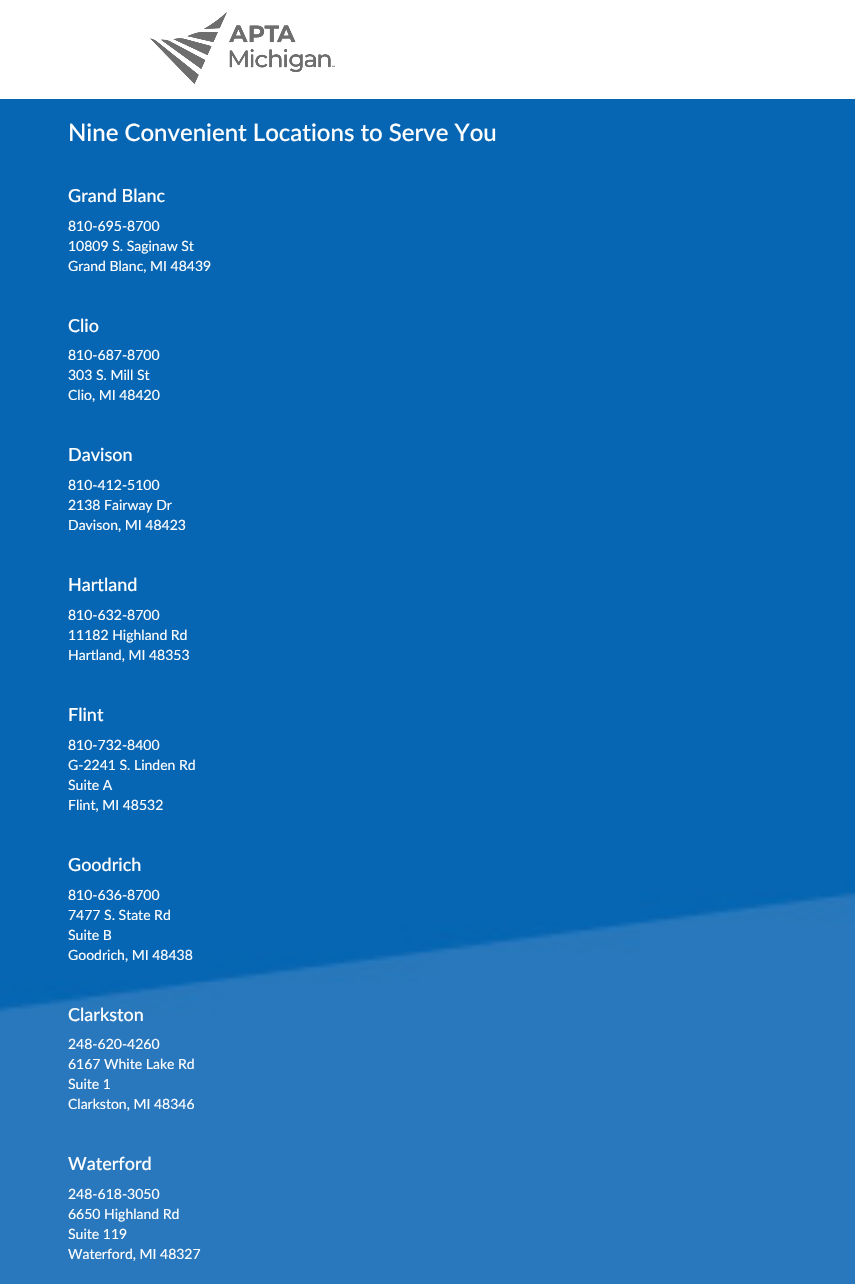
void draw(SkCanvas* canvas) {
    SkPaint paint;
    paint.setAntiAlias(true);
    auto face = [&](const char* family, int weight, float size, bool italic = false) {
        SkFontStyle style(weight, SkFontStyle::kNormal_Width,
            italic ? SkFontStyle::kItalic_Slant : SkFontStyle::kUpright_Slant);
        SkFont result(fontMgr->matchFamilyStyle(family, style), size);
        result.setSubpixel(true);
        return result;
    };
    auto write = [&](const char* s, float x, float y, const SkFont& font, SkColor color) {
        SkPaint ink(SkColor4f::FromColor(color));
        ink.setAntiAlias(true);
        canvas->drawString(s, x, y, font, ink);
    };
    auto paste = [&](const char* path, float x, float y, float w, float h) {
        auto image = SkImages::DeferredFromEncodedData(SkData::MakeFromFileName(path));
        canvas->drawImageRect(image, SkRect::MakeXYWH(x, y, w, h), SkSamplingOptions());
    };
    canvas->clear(SK_ColorWHITE);
    paste("pic1.png", 150, 12, 185, 72);
    paste("pic2.png", 0, 99, 855, 1185);
    auto kFont1 = face("Lato", 500, 24);
    write("Nine Convenient Locations to Serve You", 68, 141, kFont1, SK_ColorWHITE);
    auto kFont2 = face("Lato", 500, 18);
    write("Grand Blanc", 68, 202, kFont2, SK_ColorWHITE);
    auto kFont3 = face("Lato", 400, 14);
    write("810-695-8700", 68, 231, kFont3, SK_ColorWHITE);
    write("10809 S. Saginaw St", 68, 251, kFont3, SK_ColorWHITE);
    write("Grand Blanc, MI 48439", 68, 271, kFont3, SK_ColorWHITE);
    write("Clio", 68, 332, kFont2, SK_ColorWHITE);
    write("810-687-8700", 68, 360, kFont3, SK_ColorWHITE);
    write("303 S. Mill St", 68, 380, kFont3, SK_ColorWHITE);
    write("Clio, MI 48420", 68, 400, kFont3, SK_ColorWHITE);
    write("Davison", 68, 461, kFont2, SK_ColorWHITE);
    write("810-412-5100", 68, 490, kFont3, SK_ColorWHITE);
    write("2138 Fairway Dr", 68, 510, kFont3, SK_ColorWHITE);
    write("Davison, MI 48423", 68, 530, kFont3, SK_ColorWHITE);
    write("Hartland", 68, 591, kFont2, SK_ColorWHITE);
    write("810-632-8700", 68, 620, kFont3, SK_ColorWHITE);
    write("11182 Highland Rd", 68, 640, kFont3, SK_ColorWHITE);
    write("Hartland, MI 48353", 68, 660, kFont3, SK_ColorWHITE);
    write("Flint", 68, 721, kFont2, SK_ColorWHITE);
    write("810-732-8400", 68, 750, kFont3, SK_ColorWHITE);
    write("G-2241 S. Linden Rd", 68, 770, kFont3, SK_ColorWHITE);
    write("Suite A", 68, 790, kFont3, SK_ColorWHITE);
    write("Flint, MI 48532", 68, 810, kFont3, SK_ColorWHITE);
    write("Goodrich", 68, 871, kFont2, SK_ColorWHITE);
    write("810-636-8700", 68, 900, kFont3, SK_ColorWHITE);
    write("7477 S. State Rd", 68, 920, kFont3, SK_ColorWHITE);
    write("Suite B", 68, 940, kFont3, SK_ColorWHITE);
    write("Goodrich, MI 48438", 68, 960, kFont3, SK_ColorWHITE);
    write("Clarkston", 68, 1021, kFont2, SK_ColorWHITE);
    write("248-620-4260", 68, 1049, kFont3, SK_ColorWHITE);
    write("6167 White Lake Rd", 68, 1069, kFont3, SK_ColorWHITE);
    write("Suite 1", 68, 1089, kFont3, SK_ColorWHITE);
    write("Clarkston, MI 48346", 68, 1109, kFont3, SK_ColorWHITE);
    write("Waterford", 68, 1170, kFont2, SK_ColorWHITE);
    write("248-618-3050", 68, 1199, kFont3, SK_ColorWHITE);
    write("6650 Highland Rd", 68, 1219, kFont3, SK_ColorWHITE);
    write("Suite 119", 68, 1239, kFont3, SK_ColorWHITE);
    write("Waterford, MI 48327", 68, 1259, kFont3, SK_ColorWHITE);
}
